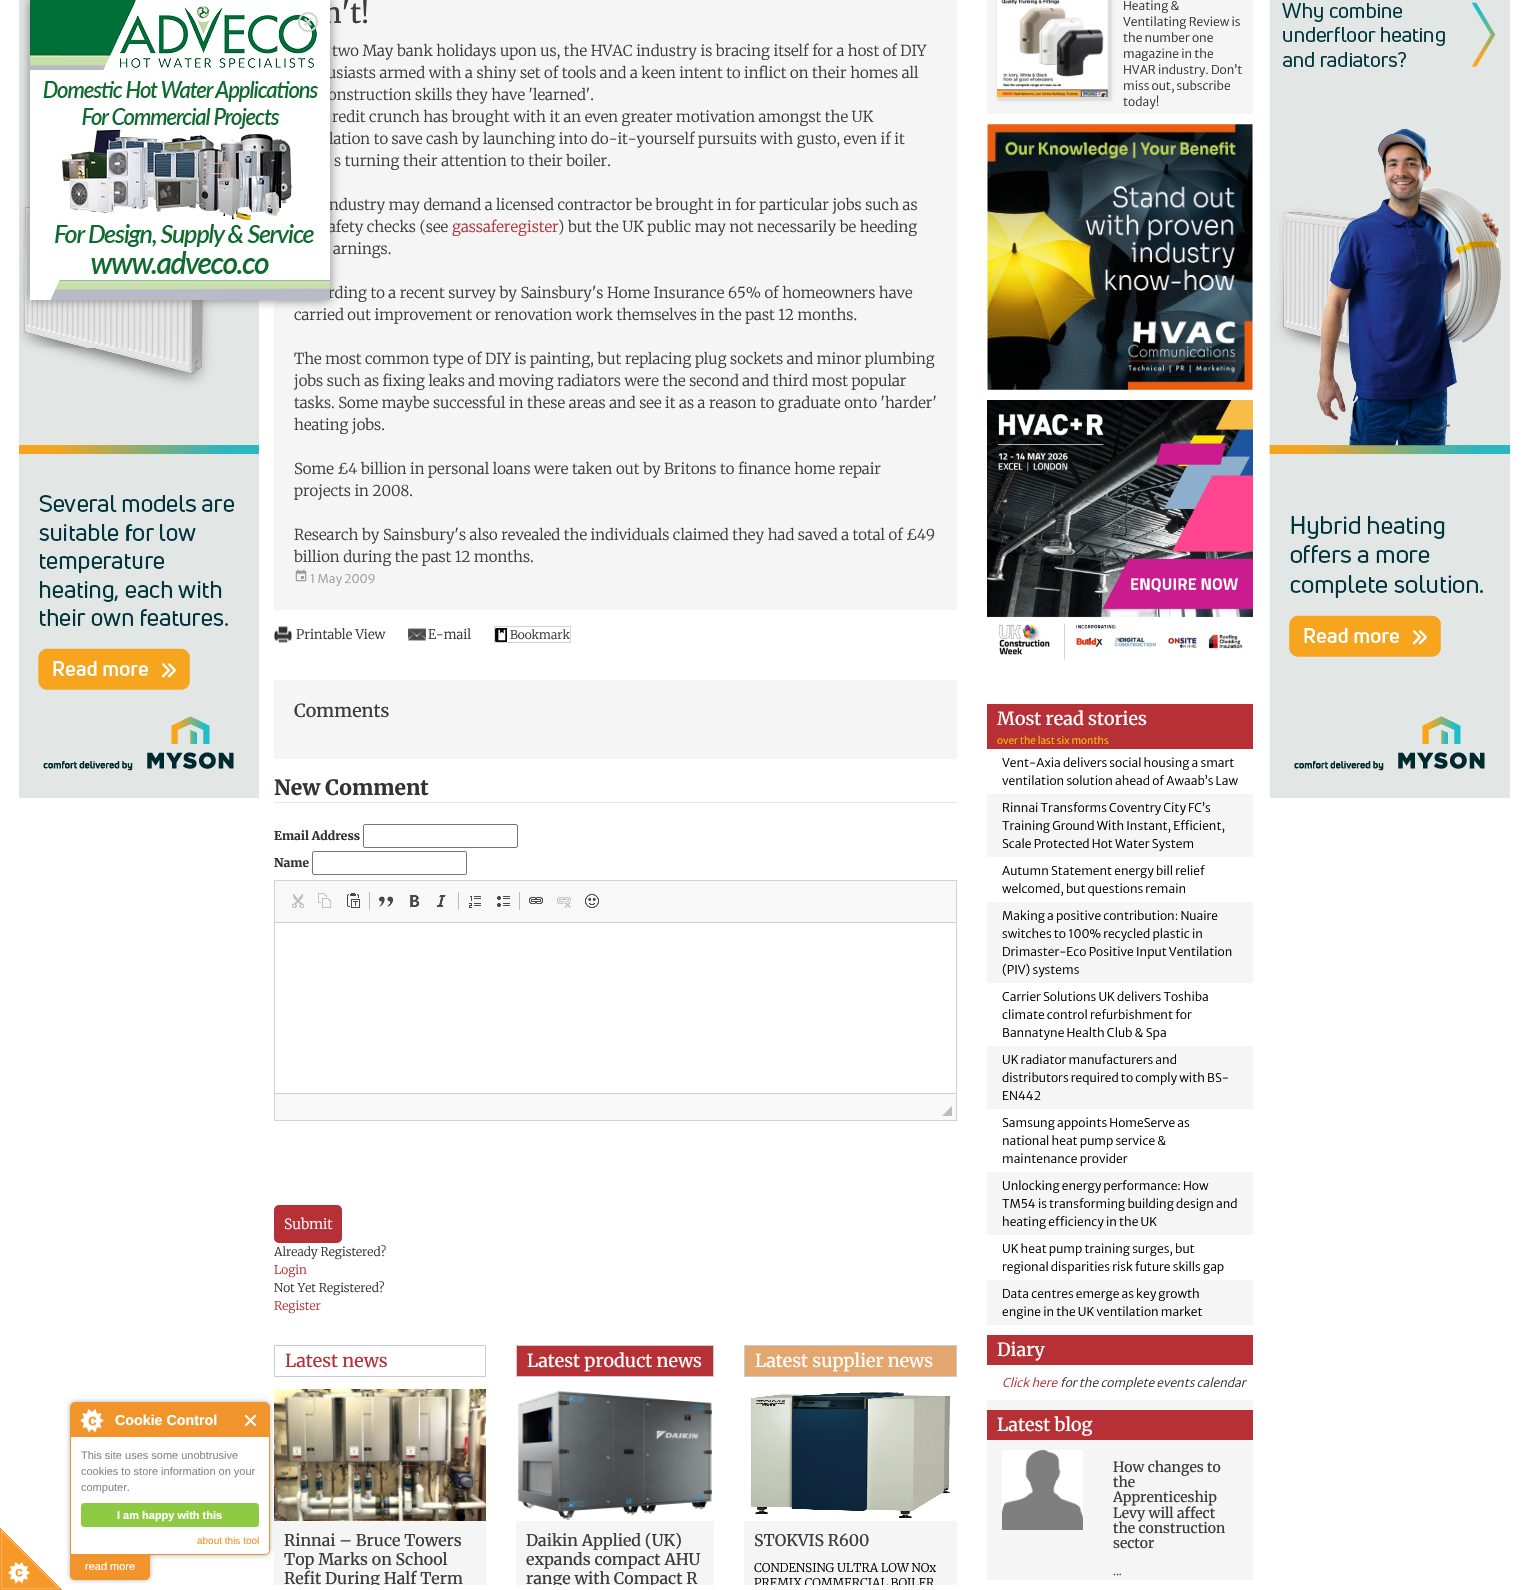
void draw(SkCanvas* canvas) {
    SkPaint paint;
    paint.setAntiAlias(true);
    auto face = [&](const char* family, int weight, float size, bool italic = false) {
        SkFontStyle style(weight, SkFontStyle::kNormal_Width,
            italic ? SkFontStyle::kItalic_Slant : SkFontStyle::kUpright_Slant);
        SkFont result(fontMgr->matchFamilyStyle(family, style), size);
        result.setSubpixel(true);
        return result;
    };
    auto write = [&](const char* s, float x, float y, const SkFont& font, SkColor color) {
        SkPaint ink(SkColor4f::FromColor(color));
        ink.setAntiAlias(true);
        canvas->drawString(s, x, y, font, ink);
    };
    auto block = [&](float x, float y, float w, float h, SkColor color) {
        SkPaint ink(SkColor4f::FromColor(color));
        ink.setAntiAlias(true);
        canvas->drawRect(SkRect::MakeXYWH(x, y, w, h), ink);
    };
    auto card = [&](float x, float y, float w, float h, float radius, SkColor color) {
        SkPaint ink(SkColor4f::FromColor(color));
        ink.setAntiAlias(true);
        canvas->drawRoundRect(SkRect::MakeXYWH(x, y, w, h), radius, radius, ink);
    };
    auto paste = [&](const char* path, float x, float y, float w, float h) {
        auto image = SkImages::DeferredFromEncodedData(SkData::MakeFromFileName(path));
        canvas->drawImageRect(image, SkRect::MakeXYWH(x, y, w, h), SkSamplingOptions());
    };
    canvas->clear(SK_ColorWHITE);
    paste("pic3.png", 19, 0, 240, 798);
    block(274, 0, 683, 610, SkColorSetRGB(245, 245, 245));
    paint.setColor(SkColorSetRGB(128, 128, 128));
    paint.setMaskFilter(SkMaskFilter::MakeBlur(kNormal_SkBlurStyle, 5));
    canvas->drawRect(SkRect::MakeXYWH(30, 0, 300, 300), paint);
    paint.setMaskFilter(nullptr);
    auto kFont1 = face("Merriweather", 500, 28);
    write("n't!", 323, 23, kFont1, SkColorSetRGB(61, 61, 61));
    auto kFont2 = face("Merriweather", 300, 15);
    write("usiasts armed with a shiny set of tools and a keen intent to inflict on their homes all", 327, 78, kFont2, SkColorSetRGB(61, 61, 61));
    write("onstruction skills they have 'learned'.", 328, 100, kFont2, SkColorSetRGB(61, 61, 61));
    write("lation to save cash by launching into do-it-yourself pursuits with gusto, even if it", 329, 144, kFont2, SkColorSetRGB(61, 61, 61));
    write("ndustry may demand a licensed contractor be brought in for particular jobs such as", 329, 210, kFont2, SkColorSetRGB(61, 61, 61));
    write("afety checks (see", 328, 232, kFont2, SkColorSetRGB(61, 61, 61));
    write("rding to a recent survey by Sainsbury's Home Insurance 65% of homeowners have", 328, 298, kFont2, SkColorSetRGB(61, 61, 61));
    paste("pic1.png", 30, 0, 300, 300);
    paste("pic2.png", 298, 12, 20, 20);
    write("two May bank holidays upon us, the HVAC industry is bracing itself for a host of DIY", 332, 56, kFont2, SkColorSetRGB(61, 61, 61));
    write("redit crunch has brought with it an even greater motivation amongst the UK", 332, 122, kFont2, SkColorSetRGB(61, 61, 61));
    write("s turning their attention to their boiler.", 334, 166, kFont2, SkColorSetRGB(61, 61, 61));
    write("gassaferegister", 452, 232, kFont2, SkColorSetRGB(183, 48, 54));
    write(") but the UK public may not necessarily be heeding", 558, 232, kFont2, SkColorSetRGB(61, 61, 61));
    write("arnings.", 333, 254, kFont2, SkColorSetRGB(61, 61, 61));
    write("carried out improvement or renovation work themselves in the past 12 months.", 294, 320, kFont2, SkColorSetRGB(61, 61, 61));
    write("The most common type of DIY is painting, but replacing plug sockets and minor plumbing", 294, 364, kFont2, SkColorSetRGB(61, 61, 61));
    write("jobs such as fixing leaks and moving radiators were the second and third most popular", 294, 386, kFont2, SkColorSetRGB(61, 61, 61));
    write("tasks. Some maybe successful in these areas and see it as a reason to graduate onto 'harder'", 294, 408, kFont2, SkColorSetRGB(61, 61, 61));
    write("heating jobs.", 294, 430, kFont2, SkColorSetRGB(61, 61, 61));
    write("Some £4 billion in personal loans were taken out by Britons to finance home repair", 294, 474, kFont2, SkColorSetRGB(61, 61, 61));
    write("projects in 2008.", 294, 496, kFont2, SkColorSetRGB(61, 61, 61));
    write("Research by Sainsbury's also revealed the individuals claimed they had saved a total of £49", 294, 540, kFont2, SkColorSetRGB(61, 61, 61));
    write("billion during the past 12 months.", 294, 562, kFont2, SkColorSetRGB(61, 61, 61));
    paste("pic4.png", 295, 569, 12, 13);
    auto kFont3 = face("Merriweather Sans", 300, 12);
    write("1 May 2009", 310, 583, kFont3, SkColorSetRGB(153, 153, 153));
    paste("pic5.png", 274, 626, 18, 17);
    auto kFont4 = face("Merriweather", 300, 13);
    write("Printable View", 296, 639, kFont4, SkColorSetRGB(51, 51, 51));
    paste("pic6.png", 408, 628, 18, 13);
    write("E-mail", 428, 639, kFont4, SkColorSetRGB(51, 51, 51));
    paste("pic7.png", 495, 628, 12, 14);
    paint.setStyle(SkPaint::kStroke_Style);
    paint.setStrokeWidth(1);
    paint.setColor(SkColorSetRGB(211, 211, 211));
    canvas->drawRect(SkRect::MakeXYWH(494.5f, 626.5f, 76, 16), paint);
    auto kFont5 = face("Merriweather", 300, 12);
    write("Bookmark", 510, 639, kFont5, SkColorSetRGB(51, 51, 51));
    block(274, 680, 683, 79, SkColorSetRGB(245, 245, 245));
    auto kFont6 = face("Merriweather", 500, 18);
    write("Comments", 294, 717, kFont6, SkColorSetRGB(61, 61, 61));
    block(274, 802, 683, 1, SkColorSetRGB(229, 229, 229));
    auto kFont7 = face("Merriweather", 800, 21);
    write("New Comment", 274, 795, kFont7, SkColorSetRGB(51, 51, 51));
    auto kFont8 = face("Merriweather", 800, 12);
    write("Email Address", 274, 840, kFont8, SkColorSetRGB(51, 51, 51));
    paint.setColor(SkColorSetRGB(118, 118, 118));
    canvas->drawRoundRect(SkRect::MakeXYWH(363.5f, 824.5f, 154, 23), 1.5f, 1.5f, paint);
    write("Name", 274, 867, kFont8, SkColorSetRGB(51, 51, 51));
    canvas->drawRoundRect(SkRect::MakeXYWH(312.5f, 851.5f, 154, 23), 1.5f, 1.5f, paint);
    paint.setColor(SkColorSetRGB(209, 209, 209));
    canvas->drawRect(SkRect::MakeXYWH(274.5f, 880.5f, 682, 240), paint);
    block(275, 881, 681, 41, SkColorSetRGB(248, 248, 248));
    block(275, 922, 681, 1, SkColorSetRGB(209, 209, 209));
    paste("pic8.png", 292, 894, 13, 14);
    paste("pic9.png", 318, 893, 13, 15);
    paste("pic10.png", 347, 893, 13, 15);
    block(369, 892, 1, 18, SkColorSetRGB(188, 188, 188));
    paste("pic11.png", 379, 896, 14, 11);
    paste("pic12.png", 410, 895, 10, 12);
    paste("pic13.png", 437, 895, 9, 12);
    block(458, 892, 1, 18, SkColorSetRGB(188, 188, 188));
    paste("pic14.png", 469, 896, 12, 12);
    paste("pic15.png", 497, 896, 13, 11);
    block(519, 892, 1, 18, SkColorSetRGB(188, 188, 188));
    paste("pic16.png", 529, 897, 14, 7);
    paste("pic17.png", 557, 897, 14, 11);
    paste("pic18.png", 585, 894, 14, 14);
    block(275, 1094, 681, 26, SkColorSetRGB(248, 248, 248));
    block(275, 1093, 681, 1, SkColorSetRGB(209, 209, 209));
    paint.setStyle(SkPaint::kFill_Style);
    paint.setColor(SkColorSetRGB(188, 188, 188));
    canvas->drawPath(SkPathBuilder().moveTo(952, 1106).lineTo(952, 1116).lineTo(942, 1116).close().detach(), paint);
    card(274, 1205, 68, 38, 5, SkColorSetRGB(183, 48, 54));
    auto kFont9 = face("Merriweather", 300, 14);
    write("Submit", 284, 1229, kFont9, SK_ColorWHITE);
    write("Already Registered?", 274, 1256, kFont5, SkColorSetRGB(51, 51, 51));
    write("Login", 274, 1274, kFont5, SkColorSetRGB(183, 48, 54));
    write("Not Yet Registered?", 274, 1292, kFont5, SkColorSetRGB(51, 51, 51));
    write("Register", 274, 1310, kFont5, SkColorSetRGB(183, 48, 54));
    paint.setStyle(SkPaint::kStroke_Style);
    paint.setColor(SkColorSetRGB(204, 204, 204));
    canvas->drawRect(SkRect::MakeXYWH(274.5f, 1345.5f, 211, 31), paint);
    auto kFont10 = face("Merriweather", 400, 18);
    write("Latest news", 285, 1367, kFont10, SkColorSetRGB(183, 48, 54));
    block(274, 1521, 212, 64, SkColorSetRGB(245, 245, 245));
    paste("pic19.png", 274, 1389, 212, 132);
    auto kFont11 = face("Merriweather", 500, 16);
    write("Rinnai – Bruce Towers", 284, 1546, kFont11, SkColorSetRGB(61, 61, 61));
    write("Top Marks on School", 284, 1565, kFont11, SkColorSetRGB(61, 61, 61));
    write("Refit During Half Term", 284, 1584, kFont11, SkColorSetRGB(61, 61, 61));
    paint.setStyle(SkPaint::kFill_Style);
    paint.setColor(SkColorSetRGB(183, 48, 54));
    canvas->drawRect(SkRect::MakeXYWH(516.5f, 1345.5f, 197, 31), paint);
    paint.setStyle(SkPaint::kStroke_Style);
    paint.setColor(SkColorSetRGB(204, 204, 204));
    canvas->drawRect(SkRect::MakeXYWH(516.5f, 1345.5f, 197, 31), paint);
    write("Latest product news", 527, 1367, kFont10, SK_ColorWHITE);
    block(516, 1521, 198, 64, SkColorSetRGB(245, 245, 245));
    paste("pic20.png", 516, 1389, 198, 132);
    write("Daikin Applied (UK)", 526, 1546, kFont11, SkColorSetRGB(61, 61, 61));
    write("expands compact AHU", 526, 1565, kFont11, SkColorSetRGB(61, 61, 61));
    write("range with Compact R", 526, 1584, kFont11, SkColorSetRGB(61, 61, 61));
    paint.setStyle(SkPaint::kFill_Style);
    paint.setColor(SkColorSetRGB(226, 166, 110));
    canvas->drawRect(SkRect::MakeXYWH(744.5f, 1345.5f, 212, 31), paint);
    paint.setStyle(SkPaint::kStroke_Style);
    paint.setColor(SkColorSetRGB(204, 204, 204));
    canvas->drawRect(SkRect::MakeXYWH(744.5f, 1345.5f, 212, 31), paint);
    write("Latest supplier news", 755, 1367, kFont10, SK_ColorWHITE);
    block(744, 1521, 213, 64, SkColorSetRGB(245, 245, 245));
    paste("pic21.png", 744, 1389, 213, 132);
    write("STOKVIS R600", 754, 1546, kFont11, SkColorSetRGB(61, 61, 61));
    write("CONDENSING ULTRA LOW NOx", 754, 1572, kFont5, SK_ColorBLACK);
    write("PREMIX COMMERCIAL BOILER", 754, 1587, kFont5, SK_ColorBLACK);
    block(987, 0, 266, 114, SkColorSetRGB(245, 245, 245));
    paint.setStyle(SkPaint::kFill_Style);
    paint.setColor(SkColorSetRGB(220, 220, 220));
    paint.setMaskFilter(SkMaskFilter::MakeBlur(kNormal_SkBlurStyle, 1));
    canvas->drawRect(SkRect::MakeXYWH(997, -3, 115, 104), paint);
    paint.setMaskFilter(nullptr);
    paste("pic22.png", 997, 0, 111, 97);
    write("Heating &", 1123, 10, kFont3, SkColorSetRGB(51, 51, 51));
    write("Ventilating Review is", 1123, 26, kFont3, SkColorSetRGB(51, 51, 51));
    write("the number one", 1123, 42, kFont3, SkColorSetRGB(51, 51, 51));
    write("magazine in the", 1123, 58, kFont3, SkColorSetRGB(51, 51, 51));
    write("HVAR industry. Don’t", 1123, 74, kFont3, SkColorSetRGB(51, 51, 51));
    write("miss out, subscribe", 1123, 90, kFont3, SkColorSetRGB(51, 51, 51));
    write("today!", 1123, 106, kFont3, SkColorSetRGB(51, 51, 51));
    paste("pic23.png", 987, 124, 266, 266);
    paste("pic24.png", 987, 400, 266, 260);
    block(987, 704, 266, 45, SkColorSetRGB(183, 48, 54));
    write("Most read stories", 997, 725, kFont6, SK_ColorWHITE);
    auto kFont12 = face("Merriweather Sans", 300, 10);
    write("over the last six months", 997, 744, kFont12, SkColorSetRGB(255, 204, 0));
    write("Vent-Axia delivers social housing a smart", 1002, 767, kFont3, SK_ColorBLACK);
    write("ventilation solution ahead of Awaab’s Law", 1002, 785, kFont3, SK_ColorBLACK);
    block(987, 794, 266, 63, SkColorSetRGB(245, 245, 245));
    write("Rinnai Transforms Coventry City FC’s", 1002, 812, kFont3, SK_ColorBLACK);
    write("Training Ground With Instant, Efficient,", 1002, 830, kFont3, SK_ColorBLACK);
    write("Scale Protected Hot Water System", 1002, 848, kFont3, SK_ColorBLACK);
    write("Autumn Statement energy bill relief", 1002, 875, kFont3, SK_ColorBLACK);
    write("welcomed, but questions remain", 1002, 893, kFont3, SK_ColorBLACK);
    block(987, 902, 266, 81, SkColorSetRGB(245, 245, 245));
    write("Making a positive contribution: Nuaire", 1002, 920, kFont3, SK_ColorBLACK);
    write("switches to 100% recycled plastic in", 1002, 938, kFont3, SK_ColorBLACK);
    write("Drimaster-Eco Positive Input Ventilation", 1002, 956, kFont3, SK_ColorBLACK);
    write("(PIV) systems", 1002, 974, kFont3, SK_ColorBLACK);
    write("Carrier Solutions UK delivers Toshiba", 1002, 1001, kFont3, SK_ColorBLACK);
    write("climate control refurbishment for", 1002, 1019, kFont3, SK_ColorBLACK);
    write("Bannatyne Health Club & Spa", 1002, 1037, kFont3, SK_ColorBLACK);
    block(987, 1046, 266, 63, SkColorSetRGB(245, 245, 245));
    write("UK radiator manufacturers and", 1002, 1064, kFont3, SK_ColorBLACK);
    write("distributors required to comply with BS-", 1002, 1082, kFont3, SK_ColorBLACK);
    write("EN442", 1002, 1100, kFont3, SK_ColorBLACK);
    write("Samsung appoints HomeServe as", 1002, 1127, kFont3, SK_ColorBLACK);
    write("national heat pump service &", 1002, 1145, kFont3, SK_ColorBLACK);
    write("maintenance provider", 1002, 1163, kFont3, SK_ColorBLACK);
    block(987, 1172, 266, 63, SkColorSetRGB(245, 245, 245));
    write("Unlocking energy performance: How", 1002, 1190, kFont3, SK_ColorBLACK);
    write("TM54 is transforming building design and", 1002, 1208, kFont3, SK_ColorBLACK);
    write("heating efficiency in the UK", 1002, 1226, kFont3, SK_ColorBLACK);
    write("UK heat pump training surges, but", 1002, 1253, kFont3, SK_ColorBLACK);
    write("regional disparities risk future skills gap", 1002, 1271, kFont3, SK_ColorBLACK);
    block(987, 1280, 266, 45, SkColorSetRGB(245, 245, 245));
    write("Data centres emerge as key growth", 1002, 1298, kFont3, SK_ColorBLACK);
    write("engine in the UK ventilation market", 1002, 1316, kFont3, SK_ColorBLACK);
    block(987, 1335, 266, 30, SkColorSetRGB(183, 48, 54));
    write("Diary", 997, 1356, kFont6, SK_ColorWHITE);
    auto kFont13 = face("Merriweather Sans", 300, 12, true);
    write("Click here", 1002, 1387, kFont13, SkColorSetRGB(183, 48, 54));
    write("for the complete events calendar", 1060, 1387, kFont13, SkColorSetRGB(51, 51, 51));
    block(987, 1400, 266, 180, SkColorSetRGB(245, 245, 245));
    block(987, 1410, 266, 30, SkColorSetRGB(183, 48, 54));
    write("Latest blog", 997, 1431, kFont6, SK_ColorWHITE);
    paste("pic25.png", 1002, 1450, 81, 80);
    auto kFont14 = face("Merriweather", 500, 14);
    write("How changes to", 1113, 1472, kFont14, SkColorSetRGB(61, 61, 61));
    write("the", 1113, 1487, kFont14, SkColorSetRGB(61, 61, 61));
    write("Apprenticeship", 1113, 1502, kFont14, SkColorSetRGB(61, 61, 61));
    write("Levy will affect", 1113, 1518, kFont14, SkColorSetRGB(61, 61, 61));
    write("the construction", 1113, 1533, kFont14, SkColorSetRGB(61, 61, 61));
    write("sector", 1113, 1548, kFont14, SkColorSetRGB(61, 61, 61));
    write("...", 1113, 1575, kFont5, SkColorSetRGB(51, 51, 51));
    paste("pic26.png", 1269, 0, 241, 798);
    block(370, 1585, 565, 4, SK_ColorWHITE);
    paste("pic27.png", 0, 1528, 62, 62);
    paint.setColor(SkColorSetARGB(77, 0, 0, 0));
    paint.setMaskFilter(SkMaskFilter::MakeBlur(kNormal_SkBlurStyle, 2.5f));
    canvas->drawRoundRect(SkRect::MakeXYWH(70, 1402, 200, 153), 5, 5, paint);
    paint.setMaskFilter(nullptr);
    paint.setColor(SK_ColorWHITE);
    canvas->drawPath(SkPathBuilder().moveTo(75, 1402.5f).lineTo(265, 1402.5f).cubicTo(267.5f, 1402.5f, 269.5f, 1404.5f, 269.5f, 1407).lineTo(269.5f, 1550).cubicTo(269.5f, 1552.5f, 267.5f, 1554.5f, 265, 1554.5f).lineTo(70.5f, 1554.5f).lineTo(70.5f, 1407).cubicTo(70.5f, 1404.5f, 72.5f, 1402.5f, 75, 1402.5f).close().detach(), paint);
    paint.setStyle(SkPaint::kStroke_Style);
    paint.setColor(SkColorSetRGB(240, 148, 43));
    canvas->drawPath(SkPathBuilder().moveTo(75, 1402.5f).lineTo(265, 1402.5f).cubicTo(267.5f, 1402.5f, 269.5f, 1404.5f, 269.5f, 1407).lineTo(269.5f, 1550).cubicTo(269.5f, 1552.5f, 267.5f, 1554.5f, 265, 1554.5f).lineTo(70.5f, 1554.5f).lineTo(70.5f, 1407).cubicTo(70.5f, 1404.5f, 72.5f, 1402.5f, 75, 1402.5f).close().detach(), paint);
    paint.setStyle(SkPaint::kFill_Style);
    paint.setColor(SkColorSetARGB(77, 0, 0, 0));
    paint.setMaskFilter(SkMaskFilter::MakeBlur(kNormal_SkBlurStyle, 2.5f));
    canvas->drawRoundRect(SkRect::MakeXYWH(70, 1553, 80, 27), 5, 5, paint);
    paint.setMaskFilter(nullptr);
    paint.setColor(SkColorSetRGB(240, 148, 43));
    canvas->drawPath(SkPathBuilder().moveTo(70, 1553).lineTo(150, 1553).lineTo(150, 1575).cubicTo(150, 1578, 148, 1580, 145, 1580).lineTo(75, 1580).cubicTo(72, 1580, 70, 1578, 70, 1575).close().detach(), paint);
    paint.setColor(SK_ColorWHITE);
    canvas->drawPath(SkPathBuilder().moveTo(76, 1403).lineTo(264, 1403).cubicTo(267, 1403, 269, 1405, 269, 1408).lineTo(269, 1549).cubicTo(269, 1552, 267, 1554, 264, 1554).lineTo(71, 1554).lineTo(71, 1408).cubicTo(71, 1405, 73, 1403, 76, 1403).close().detach(), paint);
    paint.setColor(SkColorSetRGB(240, 148, 43));
    canvas->drawPath(SkPathBuilder().moveTo(74, 1403).lineTo(266, 1403).cubicTo(267.5f, 1403, 269, 1404.5f, 269, 1406).lineTo(269, 1437).lineTo(71, 1437).lineTo(71, 1406).cubicTo(71, 1404.5f, 72.5f, 1403, 74, 1403).close().detach(), paint);
    paste("pic28.png", 80, 1409, 24, 24);
    auto kFont15 = face("Liberation Sans", 700, 14.25f);
    write("Cookie Control", 115, 1425, kFont15, SK_ColorWHITE);
    paste("pic29.png", 245, 1414, 12, 13);
    auto kFont16 = face("Liberation Sans", 400, 11);
    write("This site uses some unobtrusive", 81, 1459, kFont16, SkColorSetRGB(136, 136, 136));
    write("cookies to store information on your", 81, 1475, kFont16, SkColorSetRGB(136, 136, 136));
    write("computer.", 81, 1491, kFont16, SkColorSetRGB(136, 136, 136));
    paint.setColor(SkColorSetRGB(143, 202, 67));
    canvas->drawRoundRect(SkRect::MakeXYWH(81.5f, 1503.5f, 177, 23), 2.5f, 2.5f, paint);
    paint.setStyle(SkPaint::kStroke_Style);
    canvas->drawRoundRect(SkRect::MakeXYWH(81.5f, 1503.5f, 177, 23), 2.5f, 2.5f, paint);
    auto kFont17 = face("Liberation Sans", 700, 11);
    write("I am happy with this", 117, 1519, kFont17, SK_ColorWHITE);
    auto kFont18 = face("Liberation Sans", 400, 10);
    write("about this tool", 197, 1544, kFont18, SkColorSetRGB(240, 148, 43));
    write("read more", 85, 1570, kFont16, SK_ColorWHITE);
}
